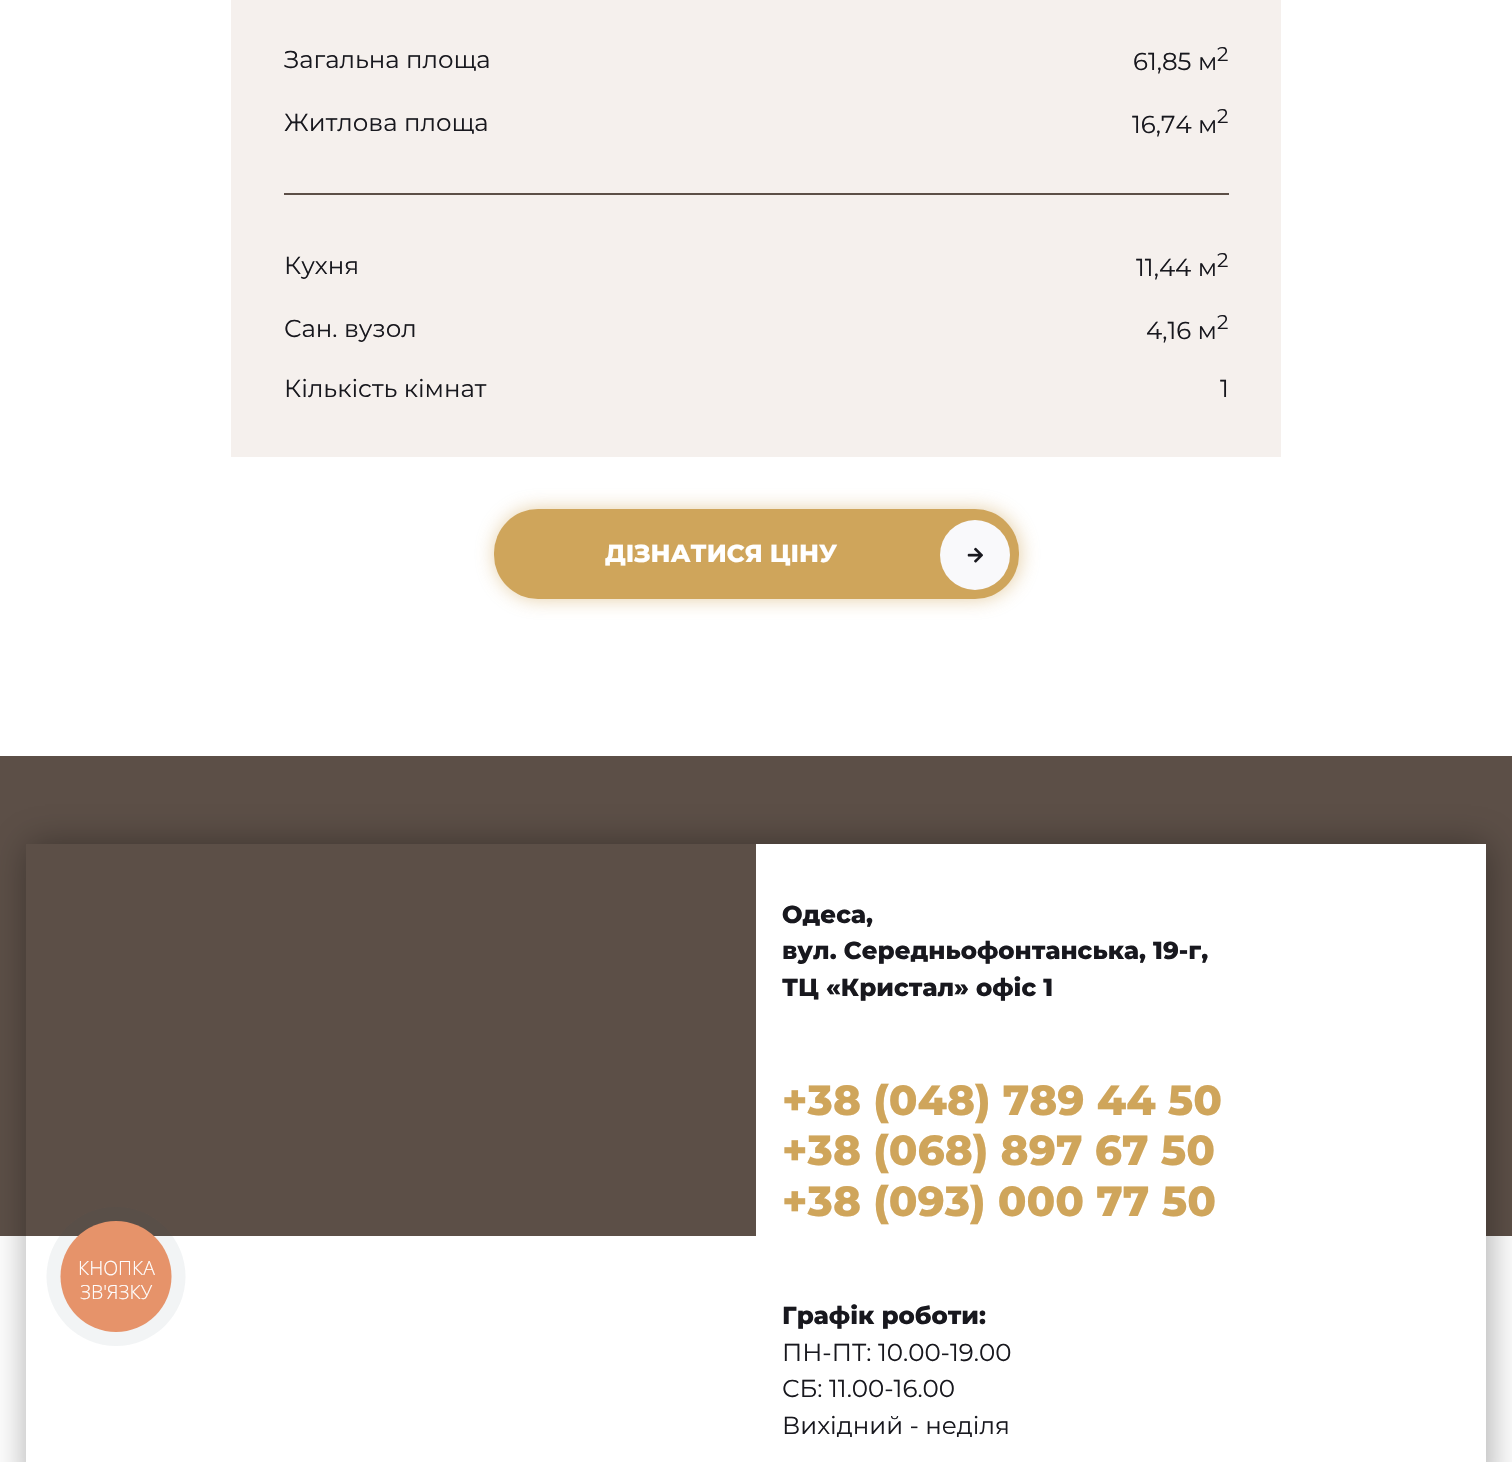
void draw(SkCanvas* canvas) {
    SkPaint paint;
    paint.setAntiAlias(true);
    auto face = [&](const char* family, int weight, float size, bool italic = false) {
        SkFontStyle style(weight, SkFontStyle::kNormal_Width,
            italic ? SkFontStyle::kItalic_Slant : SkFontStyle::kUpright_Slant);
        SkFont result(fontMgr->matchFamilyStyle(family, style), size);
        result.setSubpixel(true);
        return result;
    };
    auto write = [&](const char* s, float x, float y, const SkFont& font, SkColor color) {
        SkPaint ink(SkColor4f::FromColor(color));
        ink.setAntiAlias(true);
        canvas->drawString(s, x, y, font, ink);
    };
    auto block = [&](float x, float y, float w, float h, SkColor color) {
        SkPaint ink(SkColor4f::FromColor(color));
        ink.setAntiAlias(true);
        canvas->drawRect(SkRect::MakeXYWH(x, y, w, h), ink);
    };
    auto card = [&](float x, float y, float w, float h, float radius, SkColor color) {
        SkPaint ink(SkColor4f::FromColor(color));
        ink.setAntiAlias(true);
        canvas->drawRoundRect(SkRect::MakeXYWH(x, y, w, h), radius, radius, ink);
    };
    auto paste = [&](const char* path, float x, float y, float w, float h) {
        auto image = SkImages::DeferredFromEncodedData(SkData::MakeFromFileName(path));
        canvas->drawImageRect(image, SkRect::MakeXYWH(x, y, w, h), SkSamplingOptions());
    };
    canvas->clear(SK_ColorWHITE);
    block(0, 756, 1512, 480, SkColorSetRGB(92, 79, 71));
    canvas->save();
    canvas->clipPath(SkPathBuilder(SkPathFillType::kEvenOdd).moveTo(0, 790).lineTo(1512, 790).lineTo(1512, 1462).lineTo(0, 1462).close().moveTo(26, 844).lineTo(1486, 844).lineTo(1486, 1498).lineTo(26, 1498).close().detach(), true);
    paint.setColor(SkColorSetARGB(89, 0, 0, 0));
    paint.setMaskFilter(SkMaskFilter::MakeBlur(kNormal_SkBlurStyle, 17.5f));
    canvas->drawRect(SkRect::MakeXYWH(28, 844, 1460, 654), paint);
    paint.setMaskFilter(nullptr);
    canvas->restore();
    paint.setColor(SkColorSetARGB(15, 42, 64, 93));
    canvas->drawCircle(116, 1276.5f, 69.5f, paint);
    paint.setColor(SkColorSetRGB(230, 147, 106));
    canvas->drawCircle(116, 1276.5f, 55.5f, paint);
    auto kFont1 = face("Open Sans", 300, 19.5f);
    write("КНОПКА", 78, 1275, kFont1, SK_ColorWHITE);
    write("ЗВ'ЯЗКУ", 80, 1299, kFont1, SK_ColorWHITE);
    block(231, 0, 1050, 457, SkColorSetRGB(245, 240, 237));
    auto kFont2 = face("Montserrat", 400, 24.5f);
    write("Загальна площа", 284, 68, kFont2, SkColorSetRGB(24, 24, 30));
    write("61,85 м", 1133, 70, kFont2, SkColorSetRGB(24, 24, 30));
    auto kFont3 = face("Montserrat", 400, 20);
    write("2", 1217, 61, kFont3, SkColorSetRGB(24, 24, 30));
    write("Житлова площа", 284, 131, kFont2, SkColorSetRGB(24, 24, 30));
    write("16,74 м", 1132, 133, kFont2, SkColorSetRGB(24, 24, 30));
    write("2", 1217, 123, kFont3, SkColorSetRGB(24, 24, 30));
    block(284, 193, 945, 2, SkColorSetRGB(92, 79, 71));
    write("Кухня", 284, 274, kFont2, SkColorSetRGB(24, 24, 30));
    write("11,44 м", 1136, 276, kFont2, SkColorSetRGB(24, 24, 30));
    write("2", 1217, 267, kFont3, SkColorSetRGB(24, 24, 30));
    write("Сан. вузол", 284, 337, kFont2, SkColorSetRGB(24, 24, 30));
    write("4,16 м", 1146, 339, kFont2, SkColorSetRGB(24, 24, 30));
    write("2", 1217, 329, kFont3, SkColorSetRGB(24, 24, 30));
    write("Кількість кімнат", 284, 397, kFont2, SkColorSetRGB(24, 24, 30));
    write("1", 1220, 397, kFont2, SkColorSetRGB(24, 24, 30));
    paint.setColor(SkColorSetARGB(140, 207, 165, 91));
    paint.setMaskFilter(SkMaskFilter::MakeBlur(kNormal_SkBlurStyle, 9.5f));
    canvas->drawRoundRect(SkRect::MakeXYWH(495, 509, 525, 90), 44, 44, paint);
    paint.setMaskFilter(nullptr);
    card(494, 509, 525, 90, 44, SkColorSetRGB(207, 165, 91));
    auto kFont4 = face("Montserrat", 800, 24.5f);
    write("ДІЗНАТИСЯ ЦІНУ", 605, 562, kFont4, SK_ColorWHITE);
    paint.setColor(SkColorSetRGB(249, 249, 251));
    canvas->drawCircle(975, 555, 35, paint);
    paste("pic1.png", 967, 547, 16, 16);
    block(756, 844, 730, 618, SK_ColorWHITE);
    write("Одеса,", 782, 923, kFont4, SkColorSetRGB(24, 24, 30));
    write("вул. Середньофонтанська, 19-г,", 782, 959, kFont4, SkColorSetRGB(24, 24, 30));
    write("ТЦ «Кристал» офіс 1", 782, 996, kFont4, SkColorSetRGB(24, 24, 30));
    auto kFont5 = face("Montserrat", 800, 42);
    write("+38 (048) 789 44 50", 782, 1115, kFont5, SkColorSetRGB(207, 165, 91));
    write("+38 (068) 897 67 50", 782, 1165, kFont5, SkColorSetRGB(207, 165, 91));
    write("+38 (093) 000 77 50", 782, 1216, kFont5, SkColorSetRGB(207, 165, 91));
    write("Графік роботи:", 782, 1324, kFont4, SkColorSetRGB(24, 24, 30));
    write("ПН-ПТ: 10.00-19.00", 782, 1361, kFont2, SkColorSetRGB(24, 24, 30));
    write("СБ: 11.00-16.00", 782, 1397, kFont2, SkColorSetRGB(24, 24, 30));
    write("Вихідний - неділя", 782, 1434, kFont2, SkColorSetRGB(24, 24, 30));
}
